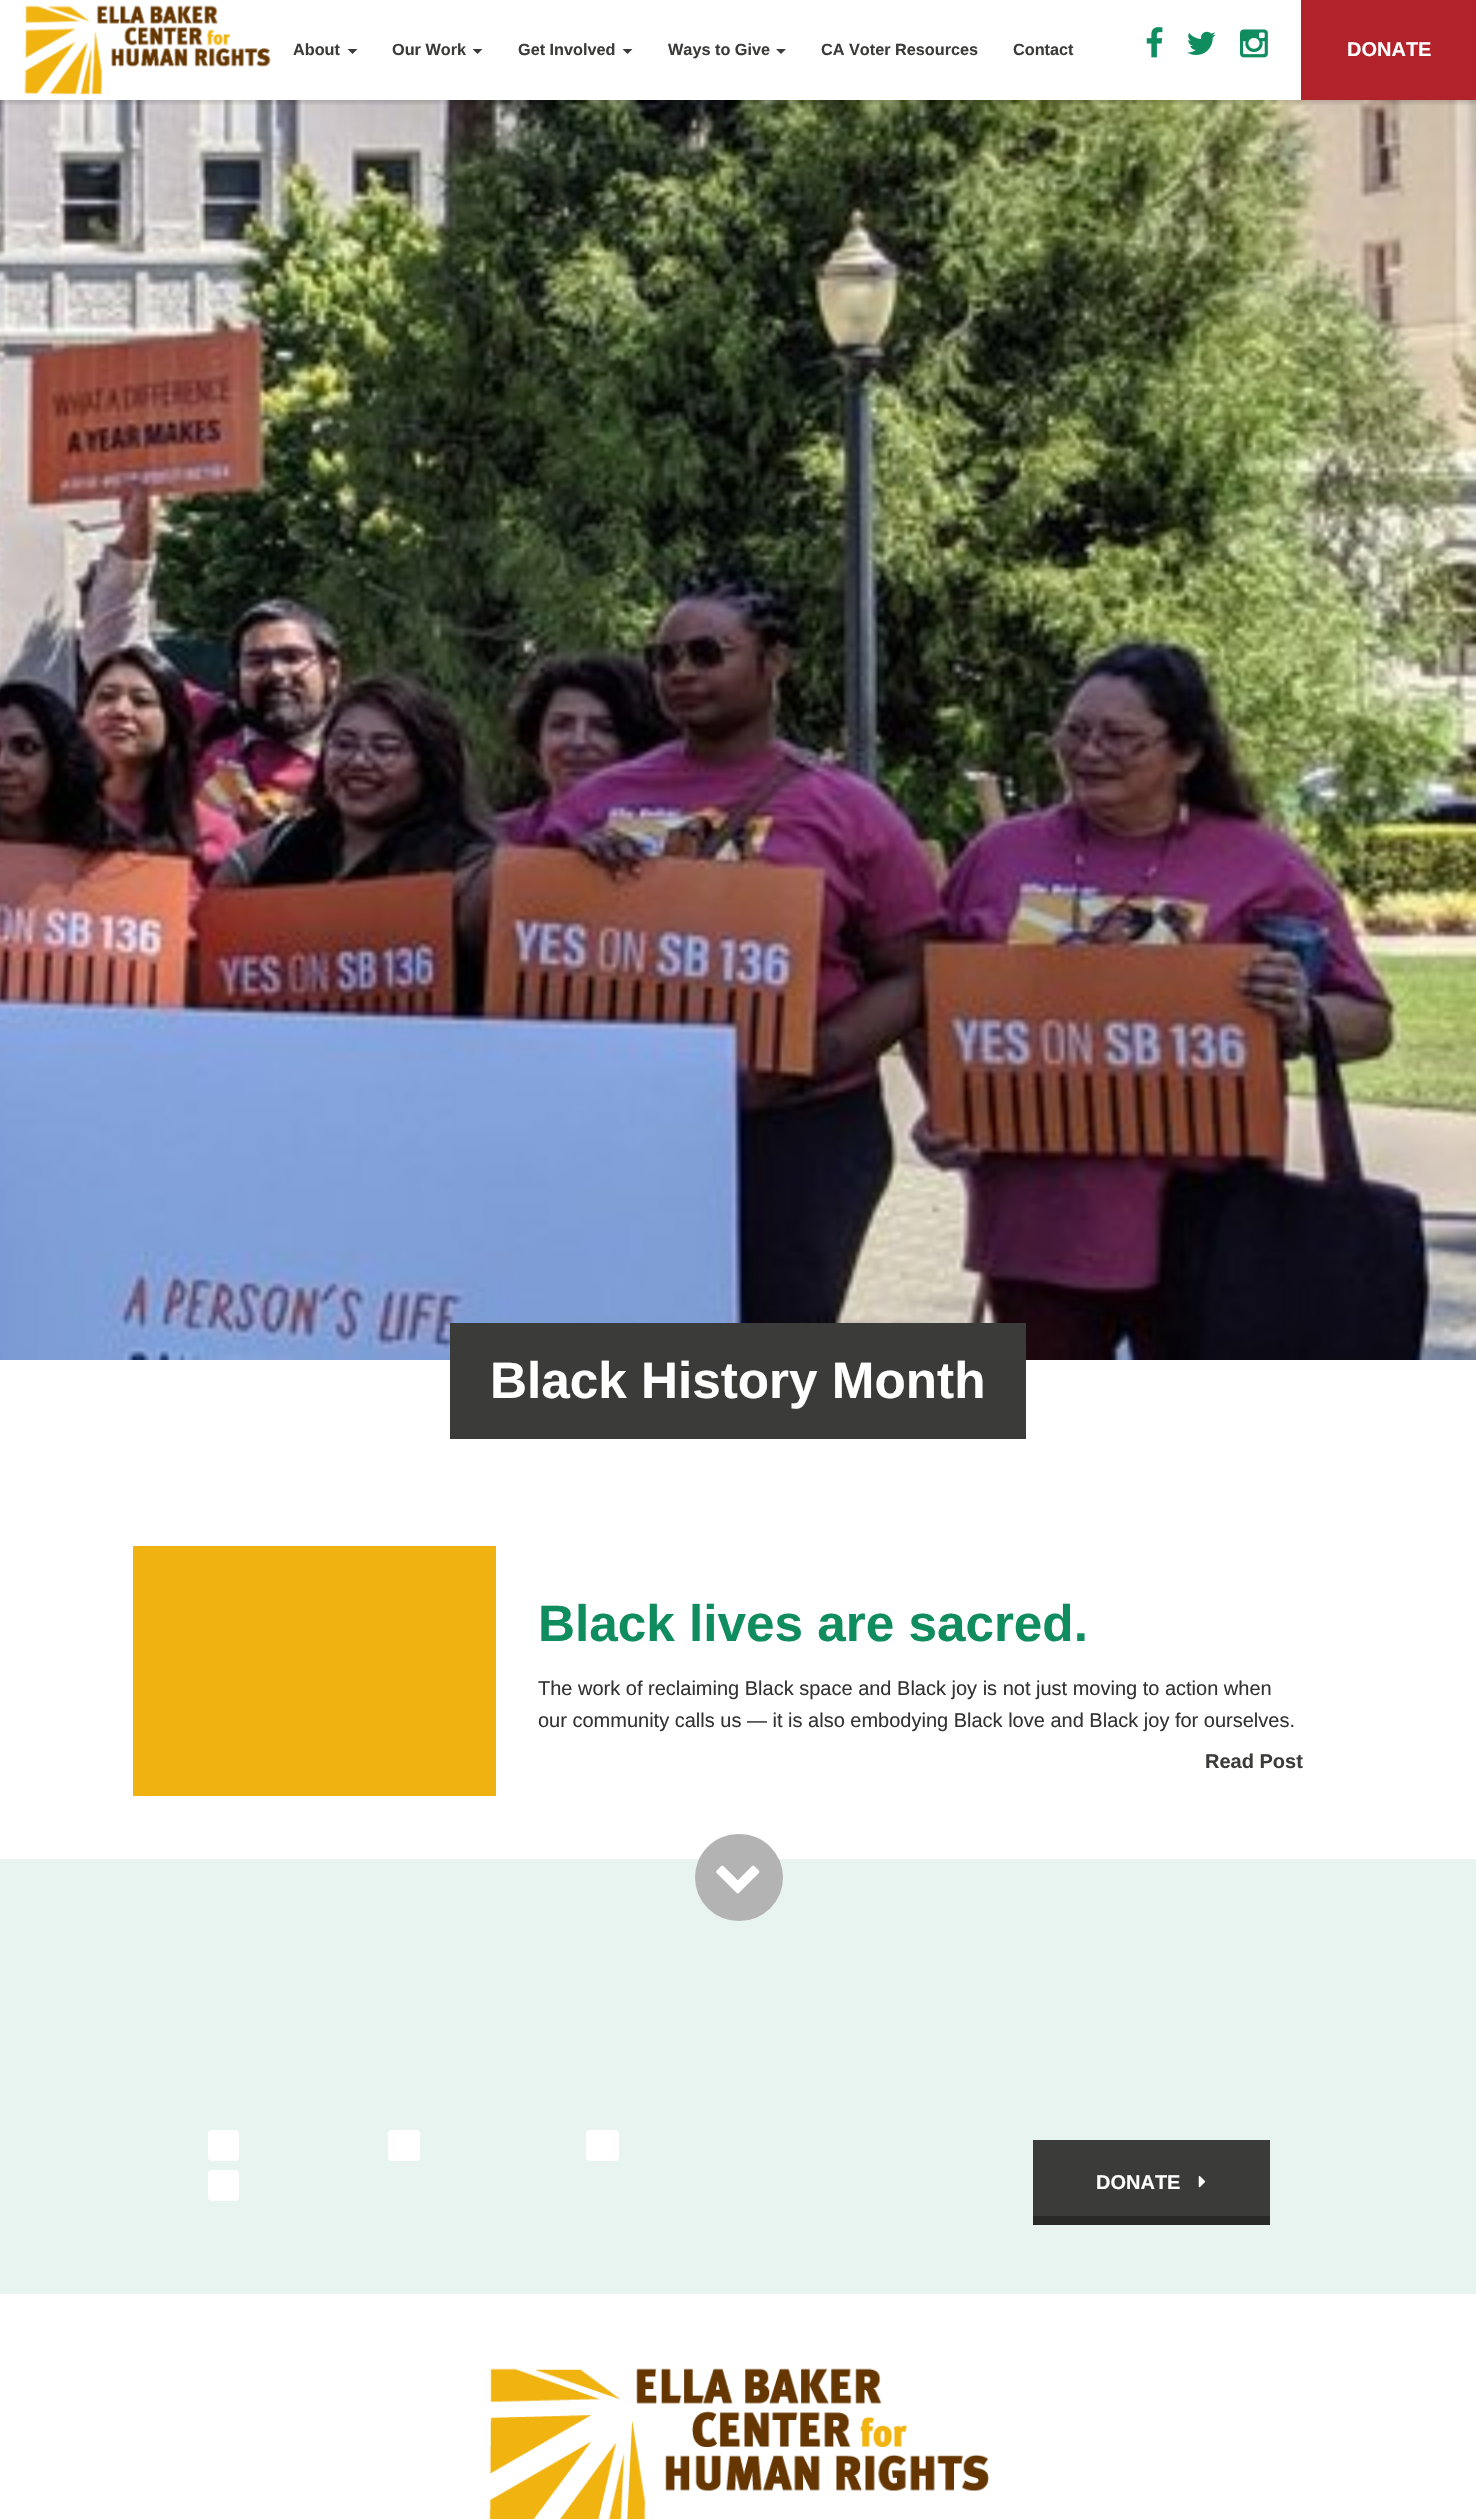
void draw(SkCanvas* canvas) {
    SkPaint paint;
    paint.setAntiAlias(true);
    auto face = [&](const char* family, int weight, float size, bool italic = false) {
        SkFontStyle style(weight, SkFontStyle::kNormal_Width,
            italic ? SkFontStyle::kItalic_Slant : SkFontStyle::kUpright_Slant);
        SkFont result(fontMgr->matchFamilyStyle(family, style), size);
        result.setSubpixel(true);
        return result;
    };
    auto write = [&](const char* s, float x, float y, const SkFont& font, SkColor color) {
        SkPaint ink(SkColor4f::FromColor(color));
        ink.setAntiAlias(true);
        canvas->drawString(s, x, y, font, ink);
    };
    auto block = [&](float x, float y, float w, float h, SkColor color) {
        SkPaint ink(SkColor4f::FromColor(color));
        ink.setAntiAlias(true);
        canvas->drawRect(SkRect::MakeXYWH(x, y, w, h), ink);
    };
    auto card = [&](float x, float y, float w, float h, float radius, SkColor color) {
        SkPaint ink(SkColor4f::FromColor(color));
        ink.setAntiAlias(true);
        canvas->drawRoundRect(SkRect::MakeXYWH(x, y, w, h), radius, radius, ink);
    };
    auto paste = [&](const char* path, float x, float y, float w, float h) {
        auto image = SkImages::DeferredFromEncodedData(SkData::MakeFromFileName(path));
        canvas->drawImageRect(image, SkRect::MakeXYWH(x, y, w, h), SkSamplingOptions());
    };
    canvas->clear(SK_ColorWHITE);
    paste("pic5.png", 0, 100, 1476, 1260);
    canvas->save();
    canvas->clipRect(SkRect::MakeXYWH(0, 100, 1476, 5));
    paint.setColor(SkColorSetARGB(38, 0, 0, 0));
    paint.setMaskFilter(SkMaskFilter::MakeBlur(kNormal_SkBlurStyle, 2));
    canvas->drawRect(SkRect::MakeXYWH(0, 3, 1476, 100), paint);
    paint.setMaskFilter(nullptr);
    canvas->restore();
    paste("pic1.png", 24, 5, 247, 90);
    auto kFont1 = face("Liberation Sans", 700, 16.25f);
    write("About", 293, 55, kFont1, SkColorSetRGB(59, 60, 58));
    paint.setColor(SkColorSetRGB(59, 60, 58));
    canvas->drawPath(SkPathBuilder().moveTo(347.5f, 49).lineTo(357.5f, 49).lineTo(352.5f, 54).close().detach(), paint);
    write("Our Work", 392, 55, kFont1, SkColorSetRGB(59, 60, 58));
    canvas->drawPath(SkPathBuilder().moveTo(472.5f, 49).lineTo(482.5f, 49).lineTo(477.5f, 54).close().detach(), paint);
    write("Get Involved", 518, 55, kFont1, SkColorSetRGB(59, 60, 58));
    canvas->drawPath(SkPathBuilder().moveTo(622.5f, 49).lineTo(632.5f, 49).lineTo(627.5f, 54).close().detach(), paint);
    write("Ways to Give", 668, 55, kFont1, SkColorSetRGB(59, 60, 58));
    canvas->drawPath(SkPathBuilder().moveTo(776, 49).lineTo(786, 49).lineTo(781, 54).close().detach(), paint);
    write("CA Voter Resources", 821, 55, kFont1, SkColorSetRGB(59, 60, 58));
    write("Contact", 1013, 55, kFont1, SkColorSetRGB(59, 60, 58));
    paste("pic2.png", 1146, 27, 17, 31);
    paste("pic3.png", 1187, 31, 29, 24);
    paste("pic4.png", 1240, 29, 28, 29);
    block(1301, 0, 175, 100, SkColorSetRGB(178, 34, 42));
    auto kFont2 = face("Liberation Sans", 700, 20);
    write("DONATE", 1347, 56, kFont2, SK_ColorWHITE);
    block(450, 1323, 576, 116, SkColorSetRGB(59, 60, 58));
    auto kFont3 = face("Liberation Sans", 700, 51.25f);
    write("Black History Month", 490, 1398, kFont3, SK_ColorWHITE);
    block(133, 1546, 363, 250, SkColorSetRGB(240, 178, 17));
    write("Black lives are sacred.", 538, 1641, kFont3, SkColorSetRGB(15, 141, 94));
    auto kFont4 = face("Liberation Sans", 400, 20);
    write("The work of reclaiming Black space and Black joy is not just moving to action when", 538, 1695, kFont4, SkColorSetRGB(51, 51, 51));
    write("our community calls us — it is also embodying Black love and Black joy for ourselves.", 538, 1727, kFont4, SkColorSetRGB(51, 51, 51));
    write("Read Post", 1205, 1768, kFont2, SkColorSetRGB(59, 60, 58));
    block(0, 1859, 1476, 435, SkColorSetRGB(232, 244, 240));
    card(695, 1834, 88, 87, 43.5f, SkColorSetRGB(179, 179, 179));
    paste("pic6.png", 716, 1865, 44, 29);
    card(208, 2130, 31, 31, 4, SK_ColorWHITE);
    card(388, 2130, 32, 31, 4, SK_ColorWHITE);
    card(586, 2130, 33, 31, 4, SK_ColorWHITE);
    card(208, 2170, 31, 31, 4, SK_ColorWHITE);
    block(1033, 2140, 237, 76, SkColorSetRGB(59, 60, 58));
    block(1033, 2216, 237, 9, SkColorSetRGB(41, 42, 40));
    write("DONATE", 1096, 2189, kFont2, SK_ColorWHITE);
    paste("pic7.png", 1198, 2175, 8, 13);
    paste("pic8.png", 489, 2368, 500, 151);
}
